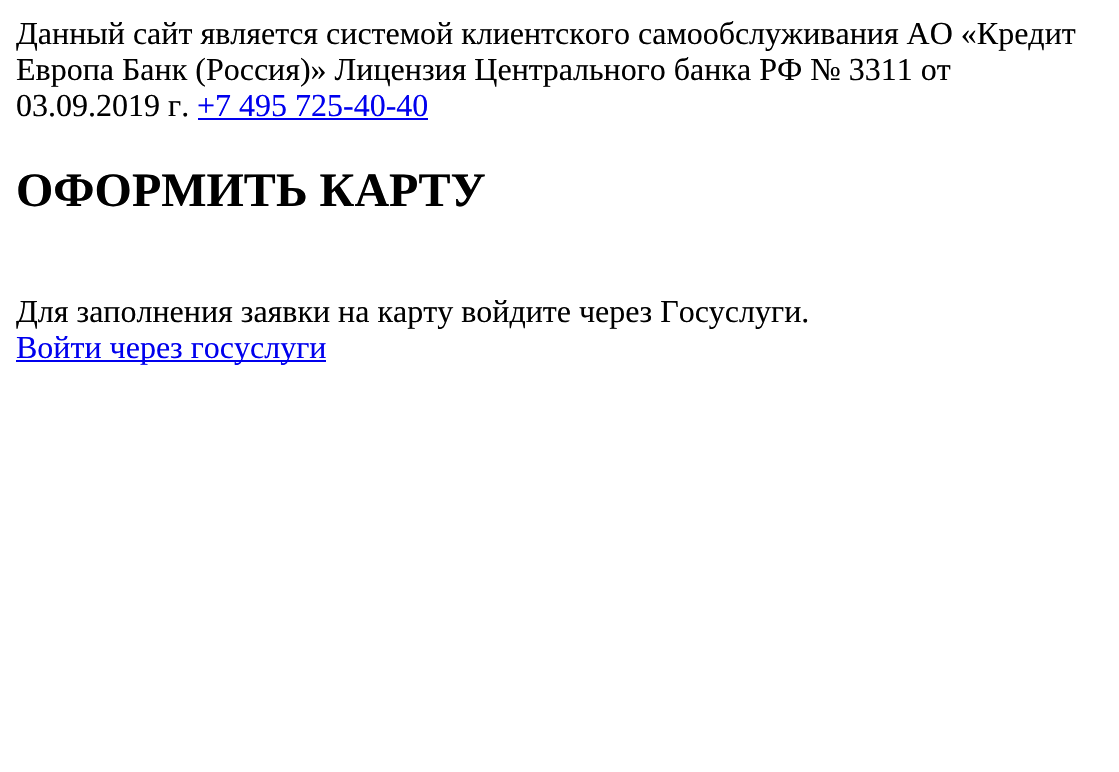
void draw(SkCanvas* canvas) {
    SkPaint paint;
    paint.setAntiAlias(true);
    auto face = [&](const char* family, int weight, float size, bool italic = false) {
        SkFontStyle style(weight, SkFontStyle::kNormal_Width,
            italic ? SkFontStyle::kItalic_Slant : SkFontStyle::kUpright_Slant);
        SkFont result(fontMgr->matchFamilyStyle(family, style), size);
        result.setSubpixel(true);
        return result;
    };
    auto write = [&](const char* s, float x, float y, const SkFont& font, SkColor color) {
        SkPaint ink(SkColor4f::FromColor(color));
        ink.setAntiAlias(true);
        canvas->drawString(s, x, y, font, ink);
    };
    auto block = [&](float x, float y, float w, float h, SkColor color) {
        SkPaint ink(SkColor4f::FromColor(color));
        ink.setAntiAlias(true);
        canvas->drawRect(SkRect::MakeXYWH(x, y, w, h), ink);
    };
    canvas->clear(SK_ColorWHITE);
    auto kFont1 = face("Liberation Serif", 400, 32);
    write("Данный сайт является системой клиентского самообслуживания АО «Кредит", 16, 44, kFont1, SK_ColorBLACK);
    write("Европа Банк (Россия)» Лицензия Центрального банка РФ № 3311 от", 16, 80, kFont1, SK_ColorBLACK);
    write("03.09.2019 г.", 16, 116, kFont1, SK_ColorBLACK);
    write("+7 495 725-40-40", 197, 116, kFont1, SkColorSetRGB(0, 0, 238));
    block(198, 118, 230, 2, SkColorSetRGB(0, 0, 238));
    auto kFont2 = face("Liberation Serif", 700, 48);
    write("ОФОРМИТЬ КАРТУ", 16, 206, kFont2, SK_ColorBLACK);
    write("Для заполнения заявки на карту войдите через Госуслуги.", 16, 322, kFont1, SK_ColorBLACK);
    block(16, 360, 310, 2, SkColorSetRGB(0, 0, 238));
    write("Войти через госуслуги", 16, 358, kFont1, SkColorSetRGB(0, 0, 238));
}
